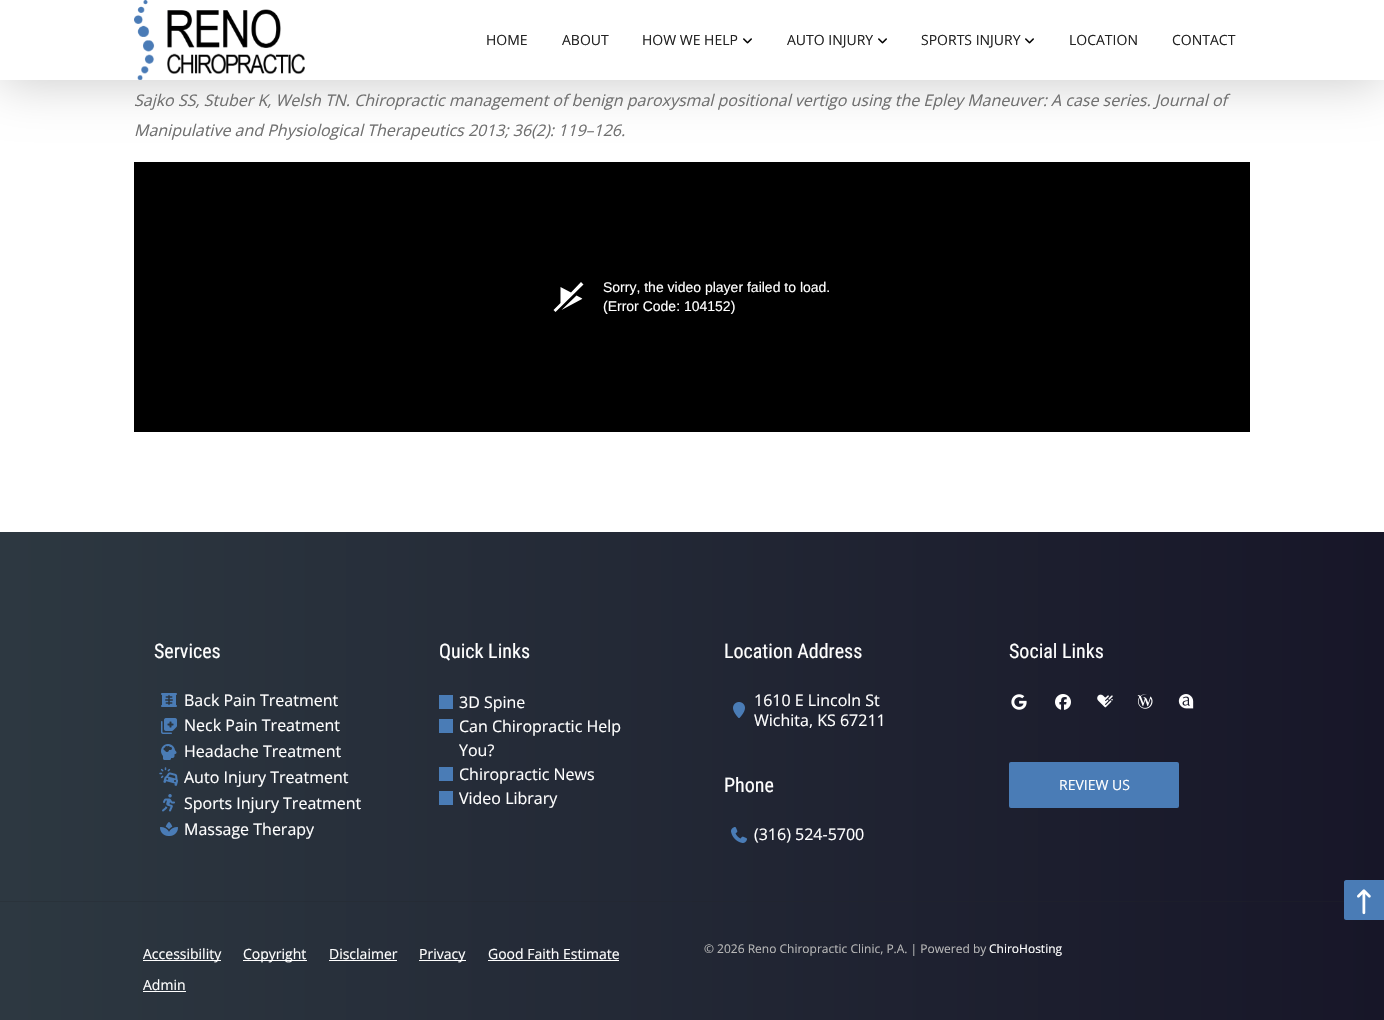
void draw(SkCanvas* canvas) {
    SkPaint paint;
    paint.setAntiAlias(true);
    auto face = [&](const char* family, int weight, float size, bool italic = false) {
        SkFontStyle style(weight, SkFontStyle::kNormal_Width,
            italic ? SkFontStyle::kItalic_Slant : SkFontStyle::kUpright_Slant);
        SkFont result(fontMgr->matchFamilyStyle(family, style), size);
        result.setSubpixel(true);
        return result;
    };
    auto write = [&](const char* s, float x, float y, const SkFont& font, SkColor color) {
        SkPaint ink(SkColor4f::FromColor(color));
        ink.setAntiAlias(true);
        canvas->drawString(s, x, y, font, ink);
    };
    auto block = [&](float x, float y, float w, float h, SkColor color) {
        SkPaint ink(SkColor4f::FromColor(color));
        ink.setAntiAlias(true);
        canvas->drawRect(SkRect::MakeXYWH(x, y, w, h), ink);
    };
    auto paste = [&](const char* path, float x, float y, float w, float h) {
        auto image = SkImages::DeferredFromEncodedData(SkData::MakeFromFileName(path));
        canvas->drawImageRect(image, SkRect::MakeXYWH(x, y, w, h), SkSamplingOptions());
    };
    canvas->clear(SK_ColorWHITE);
    paint.setColor(SkColorSetARGB(51, 0, 0, 0));
    paint.setMaskFilter(SkMaskFilter::MakeBlur(kNormal_SkBlurStyle, 25));
    canvas->drawRect(SkRect::MakeXYWH(0, 3, 1384, 80), paint);
    paint.setMaskFilter(nullptr);
    block(0, 0, 1384, 80, SK_ColorWHITE);
    paste("pic1.png", 134, 0, 171, 80);
    auto kFont1 = face("Open Sans", 400, 14);
    write("HOME", 486, 45, kFont1, SkColorSetRGB(35, 35, 35));
    write("ABOUT", 562, 45, kFont1, SkColorSetRGB(35, 35, 35));
    write("HOW WE HELP", 642, 45, kFont1, SkColorSetRGB(35, 35, 35));
    paste("pic2.png", 743, 38, 9, 6);
    write("AUTO INJURY", 787, 45, kFont1, SkColorSetRGB(35, 35, 35));
    paste("pic2.png", 878, 38, 9, 6);
    write("SPORTS INJURY", 921, 45, kFont1, SkColorSetRGB(35, 35, 35));
    paste("pic2.png", 1025, 38, 9, 6);
    write("LOCATION", 1069, 45, kFont1, SkColorSetRGB(35, 35, 35));
    write("CONTACT", 1172, 45, kFont1, SkColorSetRGB(35, 35, 35));
    auto kFont2 = face("Open Sans", 400, 16, true);
    write("Sajko SS, Stuber K, Welsh TN. Chiropractic management of benign paroxysmal positional vertigo using the Epley Maneuver: A case series. Journal of", 134, 106, kFont2, SkColorSetRGB(112, 112, 112));
    write("Manipulative and Physiological Therapeutics 2013; 36(2): 119–126.", 134, 136, kFont2, SkColorSetRGB(112, 112, 112));
    block(134, 162, 1116, 270, SK_ColorBLACK);
    paint.setColor(SK_ColorWHITE);
    canvas->drawPath(SkPathBuilder().moveTo(582, 299).lineTo(561.5f, 310).lineTo(576.5f, 295.5f).cubicTo(582, 298.5f, 583, 298.5f, 582, 299).close().moveTo(581, 282).lineTo(571, 292.5f).lineTo(560.5f, 287).lineTo(560.5f, 303).lineTo(553.5f, 310).lineTo(555.5f, 312).lineTo(583.5f, 284.5f).close().detach(), paint);
    auto kFont3 = face("Liberation Sans", 400, 14);
    write("Sorry, the video player failed to load.", 603, 292, kFont3, SK_ColorWHITE);
    write("(Error Code: 104152)", 603, 311, kFont3, SK_ColorWHITE);
    {
        const SkColor colors[] = {SkColorSetRGB(45, 56, 65), SkColorSetRGB(23, 22, 40)};
        const float stops[] = {0, 1};
        const SkPoint ends[] = {{0, 776}, {1384, 776}};
        paint.setShader(SkGradientShader::MakeLinear(ends, colors, stops, 2, SkTileMode::kClamp));
        paint.setAlpha(255);
    }
    canvas->drawRect(SkRect::MakeXYWH(0, 532, 1384, 488), paint);
    {
        const SkColor colors[] = {SkColorSetRGB(42, 51, 59), SkColorSetRGB(26, 26, 40)};
        const float stops[] = {0, 1};
        const SkPoint ends[] = {{0, 776}, {1384, 776}};
        paint.setShader(SkGradientShader::MakeLinear(ends, colors, stops, 2, SkTileMode::kClamp));
        paint.setAlpha(255);
    }
    canvas->drawRect(SkRect::MakeXYWH(0, 901, 1344, 1), paint);
    auto kFont4 = face("Roboto Condensed", 400, 20);
    write("Services", 154, 658, kFont4, SK_ColorWHITE);
    paste("pic3.png", 161, 693, 16, 14);
    auto kFont5 = face("Open Sans", 400, 16);
    write("Back Pain Treatment", 184, 706, kFont5, SK_ColorWHITE);
    paste("pic4.png", 161, 718, 16, 16);
    write("Neck Pain Treatment", 184, 731, kFont5, SK_ColorWHITE);
    paste("pic5.png", 161, 744, 16, 16);
    write("Headache Treatment", 184, 757, kFont5, SK_ColorWHITE);
    paste("pic6.png", 159, 767, 19, 19);
    write("Auto Injury Treatment", 184, 783, kFont5, SK_ColorWHITE);
    paste("pic7.png", 162, 794, 13, 18);
    write("Sports Injury Treatment", 184, 809, kFont5, SK_ColorWHITE);
    paste("pic8.png", 160, 822, 18, 14);
    write("Massage Therapy", 184, 835, kFont5, SK_ColorWHITE);
    write("Quick Links", 439, 658, kFont4, SK_ColorWHITE);
    block(439, 695, 14, 14, SkColorSetRGB(74, 124, 182));
    write("3D Spine", 459, 708, kFont5, SK_ColorWHITE);
    block(439, 719, 14, 14, SkColorSetRGB(74, 124, 182));
    write("Can Chiropractic Help", 459, 732, kFont5, SK_ColorWHITE);
    write("You?", 459, 756, kFont5, SK_ColorWHITE);
    block(439, 767, 14, 14, SkColorSetRGB(74, 124, 182));
    write("Chiropractic News", 459, 780, kFont5, SK_ColorWHITE);
    block(439, 791, 14, 14, SkColorSetRGB(74, 124, 182));
    write("Video Library", 459, 804, kFont5, SK_ColorWHITE);
    write("Location Address", 724, 658, kFont4, SK_ColorWHITE);
    write("1610 E Lincoln St", 754, 706, kFont5, SK_ColorWHITE);
    paste("pic9.png", 733, 702, 12, 16);
    write("Wichita, KS 67211", 754, 726, kFont5, SK_ColorWHITE);
    write("Phone", 724, 792, kFont4, SK_ColorWHITE);
    paste("pic10.png", 731, 827, 16, 16);
    write("(316) 524-5700", 754, 840, kFont5, SK_ColorWHITE);
    write("Social Links", 1009, 658, kFont4, SK_ColorWHITE);
    paste("pic11.png", 1011, 694, 16, 16);
    paste("pic12.png", 1055, 694, 16, 16);
    paste("pic13.png", 1097, 694, 16, 14);
    paste("pic14.png", 1137, 694, 16, 15);
    paste("pic15.png", 1178, 694, 16, 15);
    paint.setShader(nullptr);
    paint.setColor(SkColorSetRGB(74, 124, 182));
    canvas->drawRoundRect(SkRect::MakeXYWH(1010, 763, 168, 44), 1, 1, paint);
    paint.setStyle(SkPaint::kStroke_Style);
    paint.setStrokeWidth(2);
    canvas->drawRoundRect(SkRect::MakeXYWH(1010, 763, 168, 44), 1, 1, paint);
    write("REVIEW US", 1059, 790, kFont1, SK_ColorWHITE);
    block(143, 960, 78, 1, SK_ColorWHITE);
    write("Accessibility", 143, 959, kFont1, SK_ColorWHITE);
    block(243, 960, 64, 1, SK_ColorWHITE);
    write("Copyright", 243, 959, kFont1, SK_ColorWHITE);
    write("Disclaimer", 329, 959, kFont1, SK_ColorWHITE);
    block(329, 960, 68, 1, SK_ColorWHITE);
    block(419, 960, 47, 1, SK_ColorWHITE);
    write("Privacy", 419, 959, kFont1, SK_ColorWHITE);
    write("Good Faith Estimate", 488, 959, kFont1, SK_ColorWHITE);
    block(488, 960, 131, 1, SK_ColorWHITE);
    write("Admin", 143, 990, kFont1, SK_ColorWHITE);
    block(143, 991, 43, 1, SK_ColorWHITE);
    auto kFont6 = face("Open Sans", 400, 12);
    write("© 2026 Reno Chiropractic Clinic, P.A. | Powered by", 704, 953, kFont6, SkColorSetRGB(183, 183, 183));
    write("ChiroHosting", 989, 953, kFont6, SK_ColorWHITE);
    paint.setStyle(SkPaint::kFill_Style);
    canvas->drawPath(SkPathBuilder().moveTo(1346, 880).lineTo(1384, 880).lineTo(1384, 920).lineTo(1346, 920).cubicTo(1345, 920, 1344, 919, 1344, 918).lineTo(1344, 882).cubicTo(1344, 881, 1345, 880, 1346, 880).close().detach(), paint);
    paste("pic16.png", 1357, 889, 14, 26);
}
